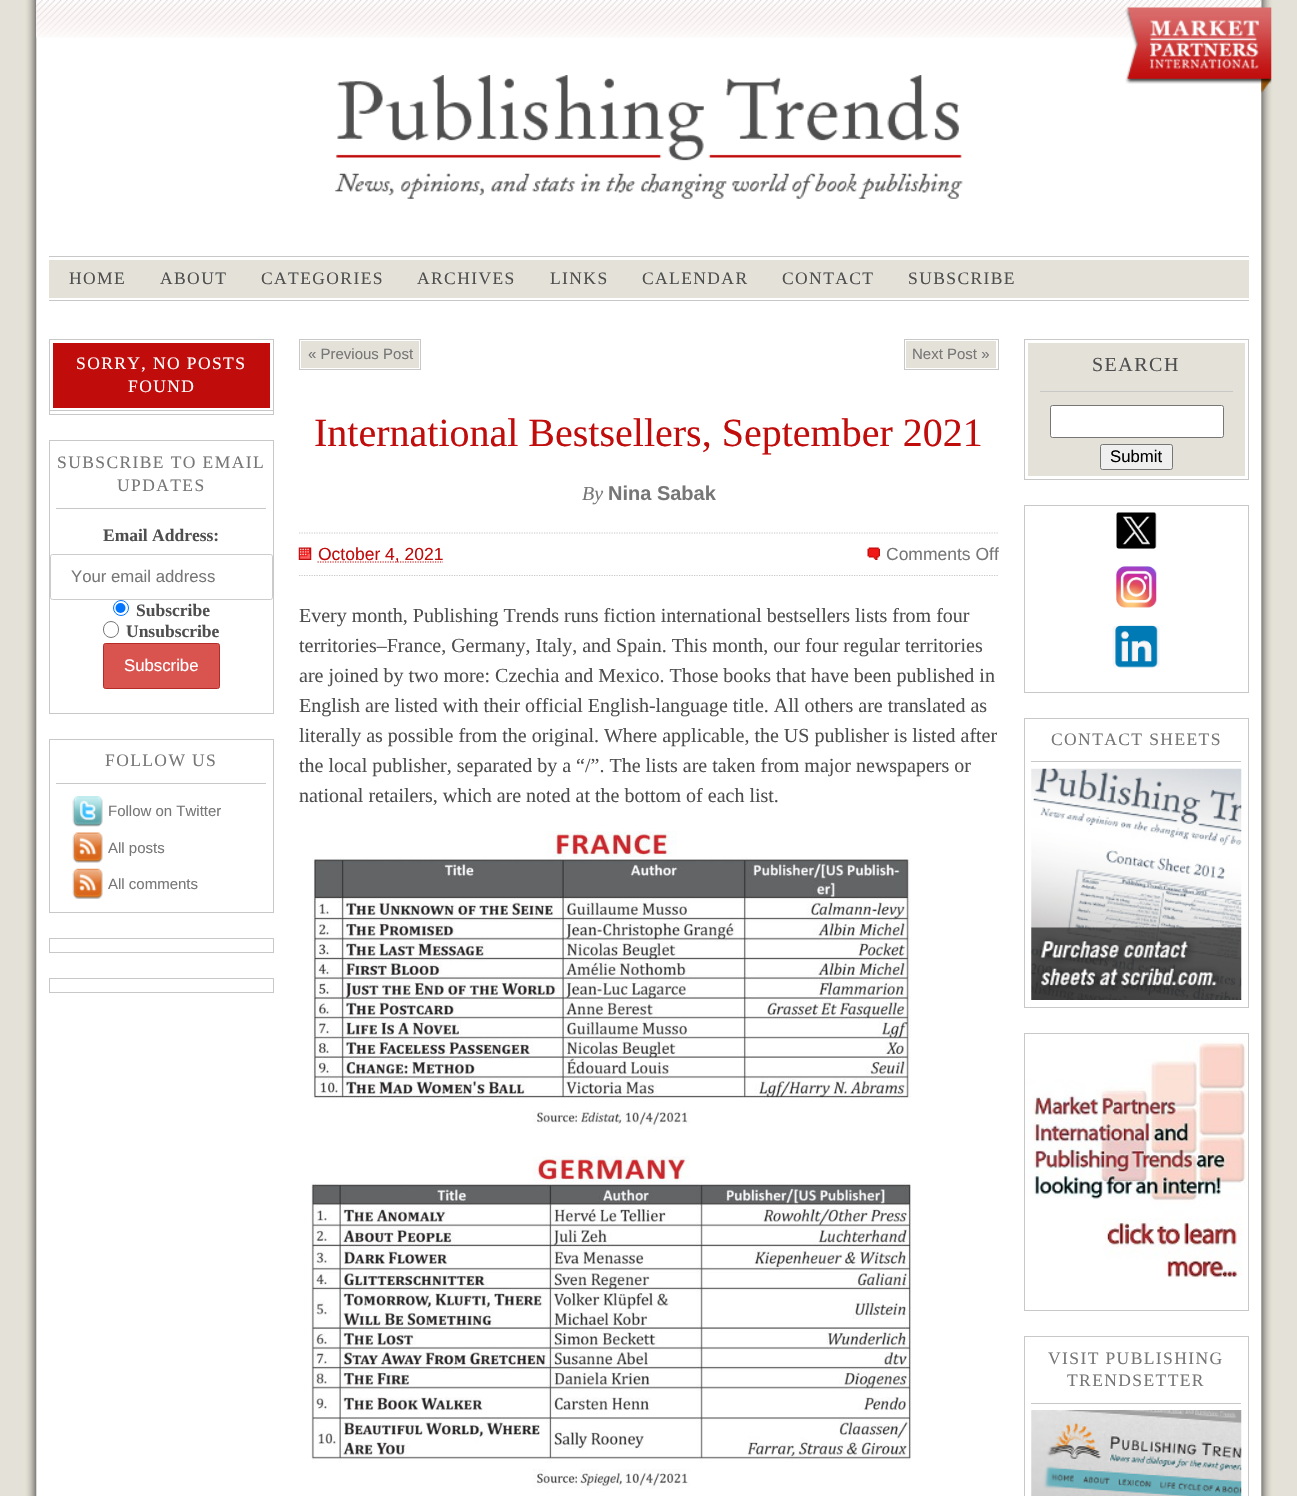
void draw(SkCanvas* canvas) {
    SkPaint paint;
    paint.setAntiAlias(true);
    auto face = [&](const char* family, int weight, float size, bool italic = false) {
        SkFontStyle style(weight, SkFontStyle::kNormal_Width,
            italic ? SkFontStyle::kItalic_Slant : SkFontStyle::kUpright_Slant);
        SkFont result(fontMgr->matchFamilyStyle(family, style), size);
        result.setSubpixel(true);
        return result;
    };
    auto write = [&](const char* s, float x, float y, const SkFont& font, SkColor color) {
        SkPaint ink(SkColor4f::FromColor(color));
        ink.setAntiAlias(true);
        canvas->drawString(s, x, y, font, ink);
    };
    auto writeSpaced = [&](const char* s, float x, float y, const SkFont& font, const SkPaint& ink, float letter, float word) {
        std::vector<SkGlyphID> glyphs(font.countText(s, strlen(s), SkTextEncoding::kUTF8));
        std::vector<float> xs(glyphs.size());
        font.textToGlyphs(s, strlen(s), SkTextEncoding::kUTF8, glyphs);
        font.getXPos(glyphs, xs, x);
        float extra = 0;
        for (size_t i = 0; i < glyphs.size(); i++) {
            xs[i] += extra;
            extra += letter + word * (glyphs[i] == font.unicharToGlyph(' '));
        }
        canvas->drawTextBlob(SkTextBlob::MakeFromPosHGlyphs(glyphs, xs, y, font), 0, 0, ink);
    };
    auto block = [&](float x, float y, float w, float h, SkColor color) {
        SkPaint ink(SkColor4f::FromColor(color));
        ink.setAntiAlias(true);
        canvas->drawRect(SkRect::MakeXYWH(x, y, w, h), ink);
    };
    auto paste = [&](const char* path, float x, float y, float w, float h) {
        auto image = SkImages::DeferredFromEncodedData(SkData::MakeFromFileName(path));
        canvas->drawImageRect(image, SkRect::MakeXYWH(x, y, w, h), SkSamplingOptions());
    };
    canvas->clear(SkColorSetRGB(228, 225, 216));
    paste("pic1.png", 24, 0, 1250, 1496);
    paste("pic2.png", 36, 0, 1226, 38);
    paste("pic3.png", 1125, 7, 147, 86);
    paste("pic4.png", 335, 75, 628, 124);
    block(49, 256, 1200, 1, SkColorSetRGB(200, 200, 200));
    block(49, 300, 1200, 1, SkColorSetRGB(200, 200, 200));
    block(49, 260, 1200, 38, SkColorSetRGB(228, 225, 216));
    auto kFont1 = face("Liberation Serif", 400, 17.5f);
    paint.setColor(SkColorSetRGB(79, 79, 79));
    writeSpaced("HOME", 69, 284, kFont1, paint, 1.4f, 0);
    writeSpaced("ABOUT", 160, 284, kFont1, paint, 1.4f, 0);
    writeSpaced("CATEGORIES", 261, 284, kFont1, paint, 1.4f, 0);
    writeSpaced("ARCHIVES", 417, 284, kFont1, paint, 1.4f, 0);
    writeSpaced("LINKS", 550, 284, kFont1, paint, 1.4f, 0);
    writeSpaced("CALENDAR", 642, 284, kFont1, paint, 1.4f, 0);
    writeSpaced("CONTACT", 782, 284, kFont1, paint, 1.4f, 0);
    writeSpaced("SUBSCRIBE", 908, 284, kFont1, paint, 1.4f, 0);
    paint.setStyle(SkPaint::kStroke_Style);
    paint.setStrokeWidth(1);
    paint.setColor(SkColorSetRGB(200, 200, 200));
    canvas->drawRect(SkRect::MakeXYWH(49.5f, 339.5f, 224, 75), paint);
    block(53, 343, 217, 65, SkColorSetRGB(193, 12, 12));
    paint.setStyle(SkPaint::kFill_Style);
    paint.setColor(SK_ColorWHITE);
    writeSpaced("SORRY, NO POSTS", 76, 369, kFont1, paint, 1.4f, 0);
    writeSpaced("FOUND", 128, 392, kFont1, paint, 1.4f, 0);
    block(50, 410, 223, 1, SkColorSetRGB(200, 200, 200));
    paint.setStyle(SkPaint::kStroke_Style);
    paint.setColor(SkColorSetRGB(200, 200, 200));
    canvas->drawRect(SkRect::MakeXYWH(49.5f, 440.5f, 224, 273), paint);
    block(56, 508, 210, 1, SkColorSetRGB(200, 200, 200));
    paint.setStyle(SkPaint::kFill_Style);
    paint.setColor(SkColorSetRGB(119, 119, 119));
    writeSpaced("SUBSCRIBE TO EMAIL", 57, 468, kFont1, paint, 1.4f, 0);
    writeSpaced("UPDATES", 117, 491, kFont1, paint, 1.4f, 0);
    auto kFont2 = face("Liberation Serif", 700, 17.5f);
    write("Email Address:", 103, 541, kFont2, SkColorSetRGB(79, 79, 79));
    paint.setStyle(SkPaint::kStroke_Style);
    paint.setColor(SkColorSetRGB(204, 204, 204));
    canvas->drawRoundRect(SkRect::MakeXYWH(50.5f, 554.5f, 222, 45), 2, 2, paint);
    auto kFont3 = face("Liberation Sans", 400, 16.75f);
    write("Your email address", 71, 582, kFont3, SkColorSetRGB(119, 119, 119));
    paint.setColor(SkColorSetRGB(0, 117, 255));
    canvas->drawCircle(121, 608, 7.5f, paint);
    paint.setStyle(SkPaint::kFill_Style);
    canvas->drawCircle(120.5f, 608, 5, paint);
    write("Subscribe", 136, 616, kFont2, SkColorSetRGB(79, 79, 79));
    paint.setStyle(SkPaint::kStroke_Style);
    paint.setColor(SkColorSetRGB(118, 118, 118));
    canvas->drawRoundRect(SkRect::MakeXYWH(103.5f, 621.5f, 15, 16), 7.5f, 7.5f, paint);
    write("Unsubscribe", 126, 637, kFont2, SkColorSetRGB(79, 79, 79));
    paint.setStyle(SkPaint::kFill_Style);
    paint.setColor(SkColorSetRGB(217, 83, 79));
    canvas->drawRoundRect(SkRect::MakeXYWH(103.5f, 643.5f, 116, 45), 2, 2, paint);
    paint.setStyle(SkPaint::kStroke_Style);
    paint.setColor(SkColorSetRGB(181, 43, 39));
    canvas->drawRoundRect(SkRect::MakeXYWH(103.5f, 643.5f, 116, 45), 2, 2, paint);
    write("Subscribe", 124, 671, kFont3, SK_ColorWHITE);
    paint.setColor(SkColorSetRGB(200, 200, 200));
    canvas->drawRect(SkRect::MakeXYWH(49.5f, 739.5f, 224, 173), paint);
    block(56, 783, 210, 1, SkColorSetRGB(200, 200, 200));
    paint.setStyle(SkPaint::kFill_Style);
    paint.setColor(SkColorSetRGB(119, 119, 119));
    writeSpaced("FOLLOW US", 105, 766, kFont1, paint, 1.4f, 0);
    paste("pic5.png", 72, 796, 31, 31);
    auto kFont4 = face("Liberation Sans", 400, 15);
    write("Follow on Twitter", 108, 816, kFont4, SkColorSetRGB(119, 119, 119));
    paste("pic6.png", 72, 832, 31, 31);
    write("All posts", 108, 853, kFont4, SkColorSetRGB(119, 119, 119));
    paste("pic7.png", 72, 868, 31, 31);
    write("All comments", 108, 889, kFont4, SkColorSetRGB(119, 119, 119));
    paint.setStyle(SkPaint::kStroke_Style);
    paint.setColor(SkColorSetRGB(200, 200, 200));
    canvas->drawRect(SkRect::MakeXYWH(49.5f, 938.5f, 224, 14), paint);
    canvas->drawRect(SkRect::MakeXYWH(49.5f, 978.5f, 224, 14), paint);
    canvas->drawRect(SkRect::MakeXYWH(299.5f, 339.5f, 121, 30), paint);
    block(301, 341, 118, 27, SkColorSetRGB(228, 225, 216));
    write("« Previous Post", 308, 359, kFont4, SkColorSetRGB(119, 119, 119));
    canvas->drawRect(SkRect::MakeXYWH(904.5f, 339.5f, 94, 30), paint);
    block(906, 341, 90, 27, SkColorSetRGB(228, 225, 216));
    write("Next Post »", 912, 359, kFont4, SkColorSetRGB(119, 119, 119));
    auto kFont5 = face("Liberation Serif", 400, 40);
    write("International Bestsellers, September 2021", 314, 446, kFont5, SkColorSetRGB(193, 12, 12));
    paint.setStrokeWidth(1.2f);
    paint.setPathEffect(SkDashPathEffect::Make({{1.25f, 1.25f}}, 0));
    canvas->drawPath(SkPathBuilder().moveTo(299, 533).lineTo(999, 533).detach(), paint);
    paint.setPathEffect(nullptr);
    auto kFont6 = face("Liberation Serif", 400, 20, true);
    write("By", 582, 500, kFont6, SkColorSetRGB(119, 119, 119));
    auto kFont7 = face("Liberation Sans", 700, 20);
    write("Nina Sabak", 608, 500, kFont7, SkColorSetRGB(119, 119, 119));
    paint.setPathEffect(SkDashPathEffect::Make({{1.25f, 1.25f}}, 0));
    canvas->drawPath(SkPathBuilder().moveTo(299, 575.5f).lineTo(999, 575.5f).detach(), paint);
    paint.setPathEffect(nullptr);
    paste("pic8.png", 298, 547, 14, 13);
    paint.setColor(SkColorSetRGB(193, 12, 12));
    paint.setPathEffect(SkDashPathEffect::Make({{1.25f, 1.25f}}, 0));
    canvas->drawPath(SkPathBuilder().moveTo(317.5f, 562).lineTo(443, 562).detach(), paint);
    paint.setPathEffect(nullptr);
    auto kFont8 = face("Liberation Sans", 400, 17.5f);
    write("October 4, 2021", 318, 560, kFont8, SkColorSetRGB(193, 12, 12));
    paste("pic9.png", 867, 547, 13, 13);
    write("Comments Off", 886, 560, kFont8, SkColorSetRGB(119, 119, 119));
    auto kFont9 = face("Liberation Serif", 400, 20);
    write("Every month, Publishing Trends runs fiction international bestsellers lists from four", 299, 622, kFont9, SkColorSetRGB(79, 79, 79));
    write("territories–France, Germany, Italy, and Spain. This month, our four regular territories", 299, 652, kFont9, SkColorSetRGB(79, 79, 79));
    write("are joined by two more: Czechia and Mexico. Those books that have been published in", 299, 682, kFont9, SkColorSetRGB(79, 79, 79));
    write("English are listed with their official English-language title. All others are translated as", 299, 712, kFont9, SkColorSetRGB(79, 79, 79));
    write("literally as possible from the original. Where applicable, the US publisher is listed after", 299, 742, kFont9, SkColorSetRGB(79, 79, 79));
    write("the local publisher, separated by a “/”. The lists are taken from major newspapers or", 299, 772, kFont9, SkColorSetRGB(79, 79, 79));
    write("national retailers, which are noted at the bottom of each list.", 299, 802, kFont9, SkColorSetRGB(79, 79, 79));
    paste("pic10.png", 312, 831, 599, 298);
    paste("pic11.png", 311, 1156, 600, 333);
    paint.setStrokeWidth(1);
    paint.setColor(SkColorSetRGB(200, 200, 200));
    canvas->drawRect(SkRect::MakeXYWH(1024.5f, 339.5f, 224, 140), paint);
    block(1028, 343, 217, 133, SkColorSetRGB(228, 225, 216));
    block(1040, 391, 193, 1, SkColorSetRGB(200, 200, 200));
    paint.setStyle(SkPaint::kFill_Style);
    paint.setColor(SkColorSetRGB(79, 79, 79));
    writeSpaced("SEARCH", 1092, 371, kFont9, paint, 1.5f, 0);
    paint.setColor(SK_ColorWHITE);
    canvas->drawRoundRect(SkRect::MakeXYWH(1050.5f, 405.5f, 173, 32), 2, 2, paint);
    paint.setStyle(SkPaint::kStroke_Style);
    paint.setColor(SkColorSetRGB(118, 118, 118));
    canvas->drawRoundRect(SkRect::MakeXYWH(1050.5f, 405.5f, 173, 32), 2, 2, paint);
    paint.setStyle(SkPaint::kFill_Style);
    paint.setColor(SkColorSetRGB(239, 239, 239));
    canvas->drawRoundRect(SkRect::MakeXYWH(1100.5f, 444.5f, 72, 25), 2, 2, paint);
    paint.setStyle(SkPaint::kStroke_Style);
    paint.setColor(SkColorSetRGB(118, 118, 118));
    canvas->drawRoundRect(SkRect::MakeXYWH(1100.5f, 444.5f, 72, 25), 2, 2, paint);
    write("Submit", 1110, 462, kFont3, SK_ColorBLACK);
    paint.setColor(SkColorSetRGB(200, 200, 200));
    canvas->drawRect(SkRect::MakeXYWH(1024.5f, 505.5f, 224, 187), paint);
    paste("pic12.png", 1116, 512, 41, 37);
    paste("pic13.png", 1116, 566, 41, 42);
    paste("pic14.png", 1112, 625, 48, 43);
    canvas->drawRect(SkRect::MakeXYWH(1024.5f, 718.5f, 224, 289), paint);
    block(1031, 761, 210, 1, SkColorSetRGB(200, 200, 200));
    paint.setStyle(SkPaint::kFill_Style);
    paint.setColor(SkColorSetRGB(119, 119, 119));
    writeSpaced("CONTACT SHEETS", 1051, 745, kFont1, paint, 1.4f, 0);
    paste("pic15.png", 1031, 768, 211, 232);
    paint.setStyle(SkPaint::kStroke_Style);
    paint.setColor(SkColorSetRGB(200, 200, 200));
    canvas->drawRect(SkRect::MakeXYWH(1024.5f, 1033.5f, 224, 277), paint);
    paste("pic16.png", 1025, 1040, 223, 239);
    canvas->drawRect(SkRect::MakeXYWH(1024.5f, 1336.5f, 224, 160), paint);
    block(1031, 1403, 210, 1, SkColorSetRGB(200, 200, 200));
    paint.setStyle(SkPaint::kFill_Style);
    paint.setColor(SkColorSetRGB(119, 119, 119));
    writeSpaced("VISIT PUBLISHING", 1048, 1364, kFont1, paint, 1.4f, 0);
    writeSpaced("TRENDSETTER", 1067, 1386, kFont1, paint, 1.4f, 0);
    paste("pic17.png", 1031, 1410, 211, 86);
}
